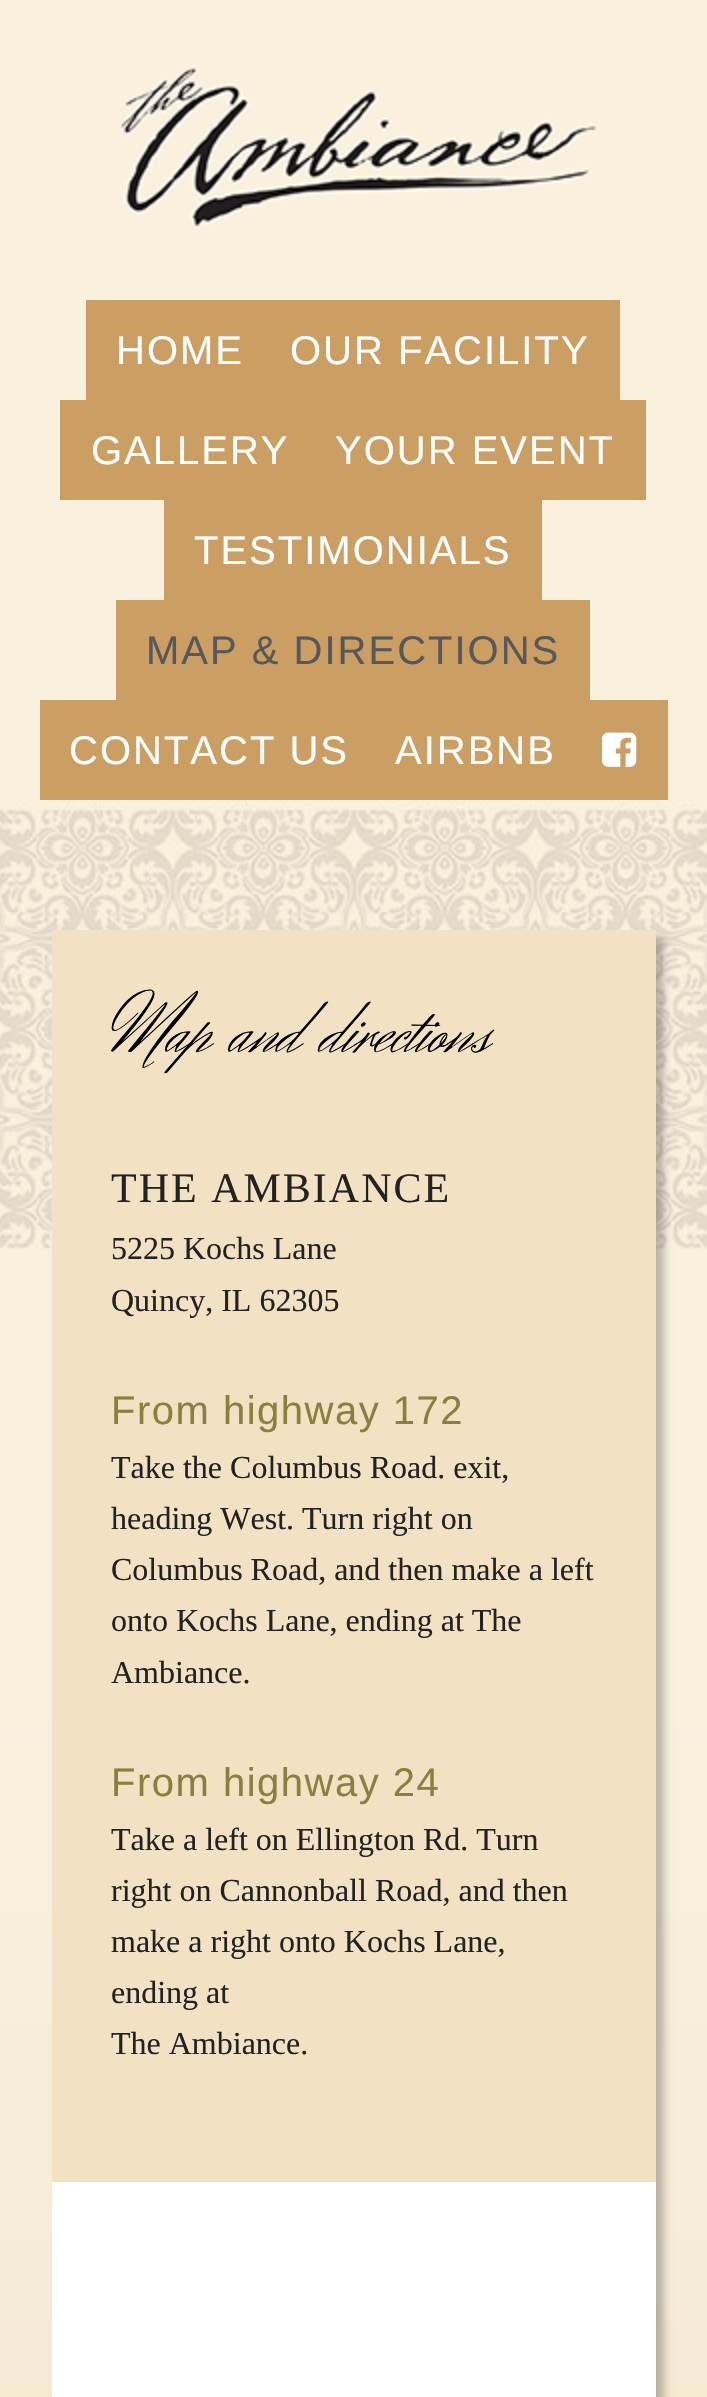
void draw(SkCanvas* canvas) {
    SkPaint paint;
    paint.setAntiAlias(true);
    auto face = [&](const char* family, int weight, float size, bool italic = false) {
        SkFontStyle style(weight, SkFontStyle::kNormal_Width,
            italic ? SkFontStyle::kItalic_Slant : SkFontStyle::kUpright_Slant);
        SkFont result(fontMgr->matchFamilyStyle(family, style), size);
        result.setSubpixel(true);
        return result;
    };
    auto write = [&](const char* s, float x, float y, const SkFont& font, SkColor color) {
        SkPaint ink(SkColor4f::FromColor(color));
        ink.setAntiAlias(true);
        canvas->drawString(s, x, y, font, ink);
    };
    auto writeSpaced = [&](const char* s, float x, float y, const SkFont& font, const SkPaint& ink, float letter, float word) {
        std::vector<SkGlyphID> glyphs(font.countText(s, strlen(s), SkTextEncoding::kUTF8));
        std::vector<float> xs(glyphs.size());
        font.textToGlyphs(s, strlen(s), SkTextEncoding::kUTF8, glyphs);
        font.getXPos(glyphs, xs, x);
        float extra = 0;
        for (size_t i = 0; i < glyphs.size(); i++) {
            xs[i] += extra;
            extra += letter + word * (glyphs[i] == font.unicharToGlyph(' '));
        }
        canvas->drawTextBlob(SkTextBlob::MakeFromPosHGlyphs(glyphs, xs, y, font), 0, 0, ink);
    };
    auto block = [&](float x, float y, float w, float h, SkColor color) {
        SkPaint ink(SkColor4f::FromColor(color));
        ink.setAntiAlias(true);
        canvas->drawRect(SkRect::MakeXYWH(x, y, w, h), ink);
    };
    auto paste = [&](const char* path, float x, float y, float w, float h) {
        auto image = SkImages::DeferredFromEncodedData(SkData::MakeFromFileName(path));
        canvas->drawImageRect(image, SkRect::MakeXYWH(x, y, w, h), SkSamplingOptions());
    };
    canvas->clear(SK_ColorWHITE);
    paste("pic1.png", 0, 0, 707, 2397);
    paste("pic2.png", 120, 65, 478, 164);
    block(86, 300, 534, 100, SkColorSetRGB(203, 158, 99));
    auto kFont1 = face("Liberation Sans", 400, 40);
    paint.setColor(SK_ColorWHITE);
    writeSpaced("HOME", 116, 364, kFont1, paint, 2, 0);
    writeSpaced("OUR FACILITY", 290, 364, kFont1, paint, 2, 0);
    block(60, 400, 586, 100, SkColorSetRGB(203, 158, 99));
    writeSpaced("GALLERY", 91, 464, kFont1, paint, 2, 0);
    writeSpaced("YOUR EVENT", 335, 464, kFont1, paint, 2, 0);
    block(164, 500, 378, 100, SkColorSetRGB(203, 158, 99));
    writeSpaced("TESTIMONIALS", 194, 564, kFont1, paint, 2, 0);
    block(116, 600, 474, 100, SkColorSetRGB(203, 158, 99));
    paint.setColor(SkColorSetRGB(88, 88, 90));
    writeSpaced("MAP & DIRECTIONS", 146, 664, kFont1, paint, 2, 0);
    block(40, 700, 628, 100, SkColorSetRGB(203, 158, 99));
    paint.setColor(SK_ColorWHITE);
    writeSpaced("CONTACT US", 69, 764, kFont1, paint, 2, 0);
    writeSpaced("AIRBNB", 395, 764, kFont1, paint, 2, 0);
    paste("pic3.png", 602, 732, 35, 35);
    paint.setColor(SkColorSetARGB(64, 0, 0, 0));
    paint.setMaskFilter(SkMaskFilter::MakeBlur(kNormal_SkBlurStyle, 4));
    canvas->drawRect(SkRect::MakeXYWH(60, 938, 604, 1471), paint);
    paint.setMaskFilter(nullptr);
    block(52, 2182, 604, 215, SK_ColorWHITE);
    block(52, 930, 604, 1252, SkColorSetRGB(242, 225, 195));
    auto kFont2 = face("Herr Von Muellerhoff", 400, 76);
    write("Map and directions", 111, 1052, kFont2, SK_ColorBLACK);
    auto kFont3 = face("Liberation Serif", 400, 42);
    paint.setColor(SkColorSetRGB(34, 34, 34));
    writeSpaced("THE AMBIANCE", 111, 1202, kFont3, paint, 2, 0);
    auto kFont4 = face("Liberation Serif", 400, 32);
    write("5225 Kochs Lane", 111, 1259, kFont4, SkColorSetRGB(34, 34, 34));
    write("Quincy, IL 62305", 111, 1311, kFont4, SkColorSetRGB(34, 34, 34));
    paint.setColor(SkColorSetRGB(140, 127, 62));
    writeSpaced("From highway 172", 111, 1424, kFont1, paint, 1.5f, 0);
    write("Take the Columbus Road. exit,", 111, 1478, kFont4, SkColorSetRGB(34, 34, 34));
    write("heading West. Turn right on", 111, 1529, kFont4, SkColorSetRGB(34, 34, 34));
    write("Columbus Road, and then make a left", 111, 1580, kFont4, SkColorSetRGB(34, 34, 34));
    write("onto Kochs Lane, ending at The", 111, 1631, kFont4, SkColorSetRGB(34, 34, 34));
    write("Ambiance.", 111, 1683, kFont4, SkColorSetRGB(34, 34, 34));
    writeSpaced("From highway 24", 111, 1796, kFont1, paint, 1.5f, 0);
    write("Take a left on Ellington Rd. Turn", 111, 1850, kFont4, SkColorSetRGB(34, 34, 34));
    write("right on Cannonball Road, and then", 111, 1901, kFont4, SkColorSetRGB(34, 34, 34));
    write("make a right onto Kochs Lane,", 111, 1952, kFont4, SkColorSetRGB(34, 34, 34));
    write("ending at", 111, 2003, kFont4, SkColorSetRGB(34, 34, 34));
    write("The Ambiance.", 111, 2054, kFont4, SkColorSetRGB(34, 34, 34));
}
